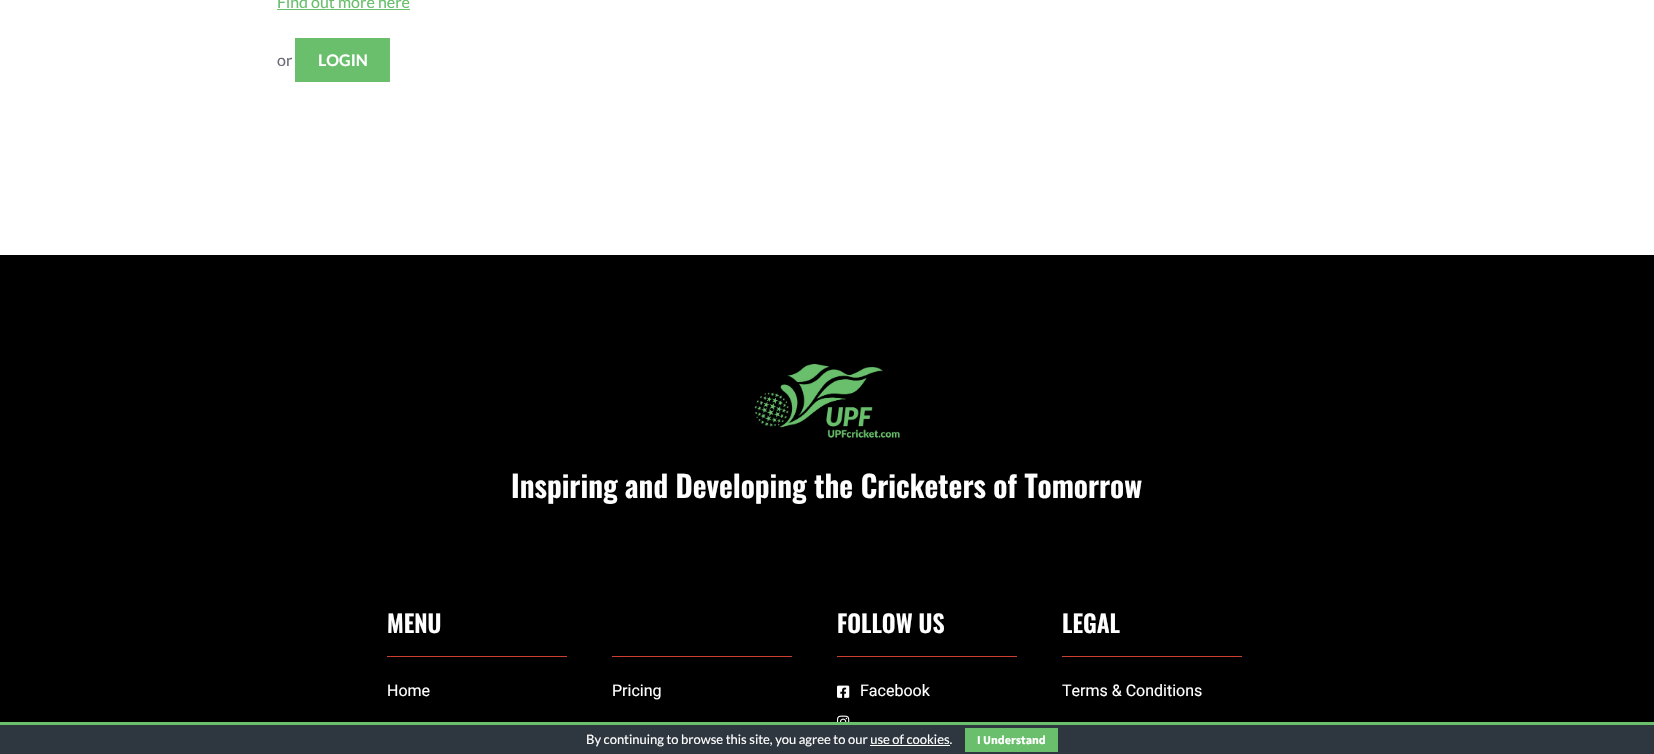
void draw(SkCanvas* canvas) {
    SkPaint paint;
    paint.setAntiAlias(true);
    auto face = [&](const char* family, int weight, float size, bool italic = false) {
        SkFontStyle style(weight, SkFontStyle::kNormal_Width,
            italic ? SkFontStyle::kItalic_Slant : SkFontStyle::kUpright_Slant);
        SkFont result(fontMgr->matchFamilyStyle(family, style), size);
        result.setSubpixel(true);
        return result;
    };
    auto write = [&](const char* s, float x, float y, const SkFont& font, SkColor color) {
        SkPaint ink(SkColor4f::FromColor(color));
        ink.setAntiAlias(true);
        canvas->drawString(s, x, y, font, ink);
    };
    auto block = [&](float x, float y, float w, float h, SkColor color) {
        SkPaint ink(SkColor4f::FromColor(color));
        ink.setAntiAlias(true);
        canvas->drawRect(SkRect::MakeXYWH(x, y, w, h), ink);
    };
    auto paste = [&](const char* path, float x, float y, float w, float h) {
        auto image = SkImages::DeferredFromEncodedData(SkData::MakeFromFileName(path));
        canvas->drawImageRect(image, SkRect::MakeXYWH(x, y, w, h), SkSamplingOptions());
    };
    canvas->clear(SK_ColorWHITE);
    auto kFont1 = face("Lato", 400, 16);
    write("Find out more here", 277, 8, kFont1, SkColorSetRGB(105, 191, 108));
    block(277, 9, 133, 1, SkColorSetRGB(105, 191, 108));
    write("or", 277, 66, kFont1, SkColorSetRGB(107, 108, 121));
    block(295, 38, 95, 44, SkColorSetRGB(105, 191, 108));
    auto kFont2 = face("Lato", 700, 16);
    write("LOGIN", 318, 66, kFont2, SK_ColorWHITE);
    block(0, 255, 1654, 467, SK_ColorBLACK);
    paste("pic1.png", 754, 364, 146, 74);
    auto kFont3 = face("Oswald", 600, 30);
    write("Inspiring and Developing the Cricketers of Tomorrow", 511, 498, kFont3, SK_ColorWHITE);
    auto kFont4 = face("Oswald", 600, 24);
    write("MENU", 387, 633, kFont4, SK_ColorWHITE);
    block(387, 656, 180, 1, SkColorSetRGB(204, 62, 47));
    auto kFont5 = face("Roboto", 400, 16);
    write("Home", 387, 696, kFont5, SK_ColorWHITE);
    block(612, 656, 180, 1, SkColorSetRGB(204, 62, 47));
    write("Pricing", 612, 696, kFont5, SK_ColorWHITE);
    write("FOLLOW US", 837, 633, kFont4, SK_ColorWHITE);
    block(837, 656, 180, 1, SkColorSetRGB(204, 62, 47));
    paste("pic2.png", 837, 685, 13, 13);
    write("Facebook", 860, 696, kFont5, SK_ColorWHITE);
    paste("pic3.png", 837, 715, 13, 7);
    write("LEGAL", 1062, 633, kFont4, SK_ColorWHITE);
    block(1062, 656, 180, 1, SkColorSetRGB(204, 62, 47));
    write("Terms & Conditions", 1062, 696, kFont5, SK_ColorWHITE);
    block(0, 725, 1654, 29, SkColorSetRGB(46, 54, 63));
    block(0, 722, 1654, 3, SkColorSetRGB(105, 191, 108));
    auto kFont6 = face("Lato", 400, 13);
    write("By continuing to browse this site, you agree to our use of cookies.", 586, 744, kFont6, SK_ColorWHITE);
    block(965, 728, 93, 24, SkColorSetRGB(105, 191, 108));
    auto kFont7 = face("Source Sans Pro", 700, 12);
    write("I Understand", 977, 744, kFont7, SK_ColorWHITE);
    block(870, 745, 80, 1, SK_ColorWHITE);
}
